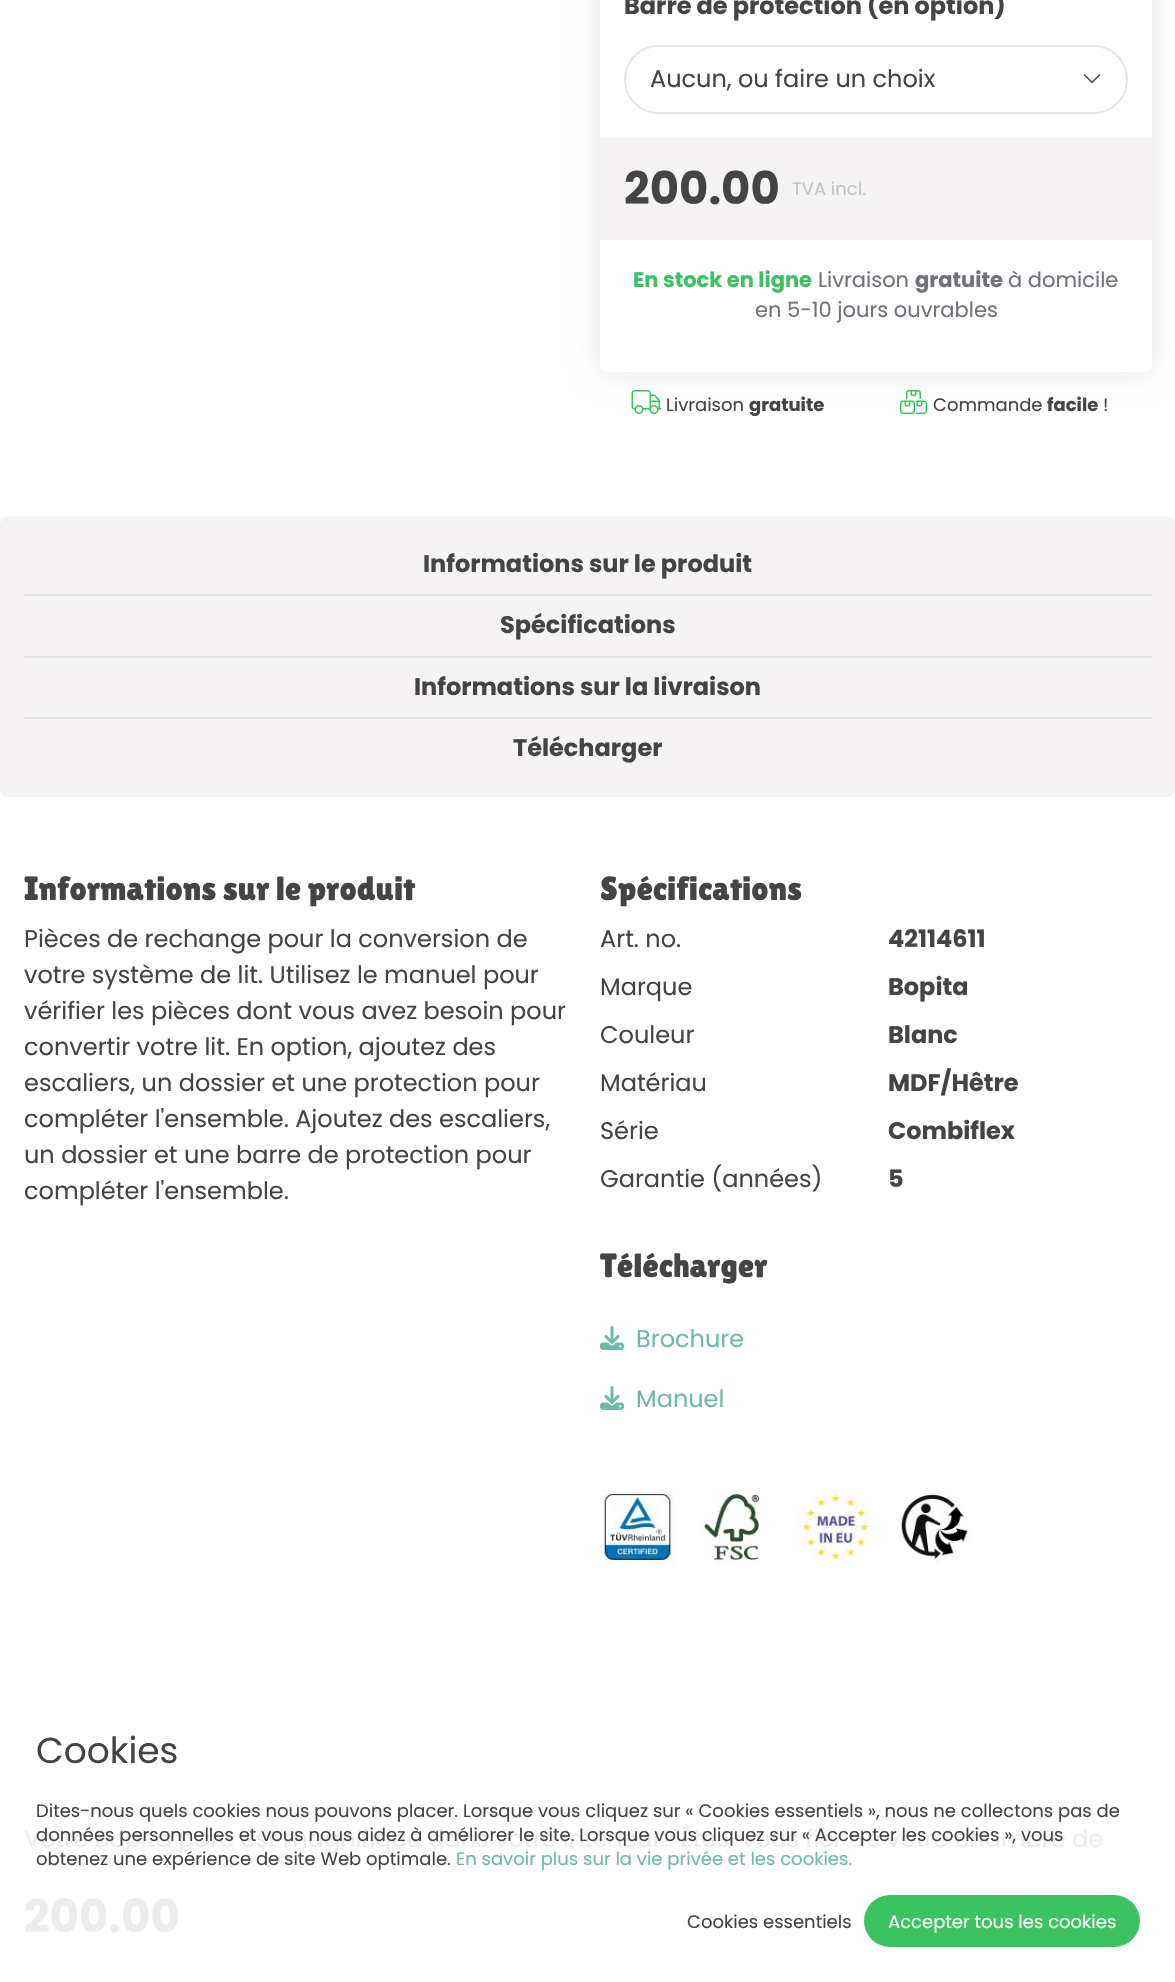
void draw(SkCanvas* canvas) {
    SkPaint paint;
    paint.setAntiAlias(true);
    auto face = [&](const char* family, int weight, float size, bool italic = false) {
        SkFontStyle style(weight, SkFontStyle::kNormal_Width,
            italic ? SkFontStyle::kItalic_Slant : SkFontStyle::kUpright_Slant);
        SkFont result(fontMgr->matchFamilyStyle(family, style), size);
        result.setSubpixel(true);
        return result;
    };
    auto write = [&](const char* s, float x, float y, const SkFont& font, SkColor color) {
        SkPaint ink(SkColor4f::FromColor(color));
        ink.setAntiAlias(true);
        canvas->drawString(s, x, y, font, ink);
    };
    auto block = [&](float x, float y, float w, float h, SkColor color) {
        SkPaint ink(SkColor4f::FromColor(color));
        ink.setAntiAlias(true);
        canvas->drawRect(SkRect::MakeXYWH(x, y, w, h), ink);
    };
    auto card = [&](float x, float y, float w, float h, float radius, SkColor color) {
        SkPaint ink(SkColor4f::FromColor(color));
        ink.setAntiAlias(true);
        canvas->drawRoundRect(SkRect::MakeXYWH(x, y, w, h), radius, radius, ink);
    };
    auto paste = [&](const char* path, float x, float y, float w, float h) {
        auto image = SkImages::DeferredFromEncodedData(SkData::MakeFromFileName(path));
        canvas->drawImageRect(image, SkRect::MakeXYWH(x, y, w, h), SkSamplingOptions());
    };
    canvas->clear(SK_ColorWHITE);
    canvas->save();
    canvas->clipPath(SkPathBuilder(SkPathFillType::kEvenOdd).moveTo(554, 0).lineTo(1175, 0).lineTo(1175, 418).lineTo(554, 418).close().moveTo(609, -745).lineTo(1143, -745).cubicTo(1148, -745, 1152, -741, 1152, -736).lineTo(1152, 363).cubicTo(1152, 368, 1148, 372, 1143, 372).lineTo(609, 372).cubicTo(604, 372, 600, 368, 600, 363).lineTo(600, -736).cubicTo(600, -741, 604, -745, 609, -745).close().detach(), true);
    paint.setColor(SkColorSetARGB(26, 0, 0, 0));
    paint.setMaskFilter(SkMaskFilter::MakeBlur(kNormal_SkBlurStyle, 15));
    canvas->drawRoundRect(SkRect::MakeXYWH(600, -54, 552, 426), 9, 9, paint);
    paint.setMaskFilter(nullptr);
    canvas->restore();
    auto kFont1 = face("Poppins", 700, 24);
    write("Barre de protection (en option)", 624, 14, kFont1, SkColorSetRGB(68, 68, 68));
    paint.setStyle(SkPaint::kStroke_Style);
    paint.setStrokeWidth(2);
    paint.setColor(SkColorSetRGB(228, 228, 231));
    canvas->drawRoundRect(SkRect::MakeXYWH(625, 46, 502, 67), 33.5f, 33.5f, paint);
    auto kFont2 = face("Poppins", 400, 24);
    write("Aucun, ou faire un choix", 650, 87, kFont2, SkColorSetRGB(68, 68, 68));
    paste("pic1.png", 1083, 74, 18, 10);
    block(600, 138, 552, 102, SkColorSetRGB(245, 243, 243));
    auto kFont3 = face("Poppins", 700, 45);
    write("200.00", 624, 204, kFont3, SkColorSetRGB(68, 68, 68));
    auto kFont4 = face("Poppins", 400, 18);
    write("TVA incl.", 792, 195, kFont4, SkColorSetRGB(197, 197, 197));
    auto kFont5 = face("Poppins", 700, 21);
    write("En stock en ligne", 633, 287, kFont5, SkColorSetRGB(60, 194, 97));
    auto kFont6 = face("Poppins", 400, 21);
    write("Livraison", 818, 287, kFont6, SkColorSetRGB(113, 113, 122));
    write("gratuite", 915, 287, kFont5, SkColorSetRGB(113, 113, 122));
    write("à domicile", 1008, 287, kFont6, SkColorSetRGB(113, 113, 122));
    write("en 5-10 jours ouvrables", 755, 317, kFont6, SkColorSetRGB(113, 113, 122));
    write("200.00", 24, 1932, kFont3, SkColorSetRGB(236, 236, 236));
    paste("pic2.png", 631, 390, 31, 24);
    write("Livraison", 666, 411, kFont4, SkColorSetRGB(68, 68, 68));
    auto kFont7 = face("Poppins", 700, 18);
    write("gratuite", 749, 411, kFont7, SkColorSetRGB(68, 68, 68));
    paste("pic3.png", 900, 390, 27, 24);
    write("Commande", 933, 411, kFont4, SkColorSetRGB(68, 68, 68));
    write("facile", 1047, 411, kFont7, SkColorSetRGB(68, 68, 68));
    write("!", 1103, 411, kFont4, SkColorSetRGB(68, 68, 68));
    card(0, 516, 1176, 281, 9, SkColorSetRGB(245, 243, 243));
    block(24, 594, 1128, 2, SkColorSetRGB(228, 228, 231));
    write("Informations sur le produit", 423, 572, kFont1, SkColorSetRGB(68, 68, 68));
    block(24, 656, 1128, 2, SkColorSetRGB(228, 228, 231));
    write("Spécifications", 500, 633, kFont1, SkColorSetRGB(68, 68, 68));
    block(24, 717, 1128, 2, SkColorSetRGB(228, 228, 231));
    write("Informations sur la livraison", 414, 695, kFont1, SkColorSetRGB(68, 68, 68));
    write("Télécharger", 513, 756, kFont1, SkColorSetRGB(68, 68, 68));
    auto kFont8 = face("Lilita One", 400, 33.6f);
    write("Informations sur le produit", 24, 900, kFont8, SkColorSetRGB(68, 68, 68));
    write("Pièces de rechange pour la conversion de", 24, 947, kFont2, SkColorSetRGB(68, 68, 68));
    write("votre système de lit. Utilisez le manuel pour", 24, 983, kFont2, SkColorSetRGB(68, 68, 68));
    write("vérifier les pièces dont vous avez besoin pour", 24, 1019, kFont2, SkColorSetRGB(68, 68, 68));
    write("convertir votre lit. En option, ajoutez des", 24, 1055, kFont2, SkColorSetRGB(68, 68, 68));
    write("escaliers, un dossier et une protection pour", 24, 1091, kFont2, SkColorSetRGB(68, 68, 68));
    write("compléter l'ensemble. Ajoutez des escaliers,", 24, 1127, kFont2, SkColorSetRGB(68, 68, 68));
    write("un dossier et une barre de protection pour", 24, 1163, kFont2, SkColorSetRGB(68, 68, 68));
    write("compléter l'ensemble.", 24, 1199, kFont2, SkColorSetRGB(68, 68, 68));
    write("Spécifications", 600, 900, kFont8, SkColorSetRGB(68, 68, 68));
    write("Art. no.", 600, 947, kFont2, SkColorSetRGB(68, 68, 68));
    write("42114611", 888, 947, kFont1, SkColorSetRGB(68, 68, 68));
    write("Marque", 600, 995, kFont2, SkColorSetRGB(68, 68, 68));
    write("Bopita", 888, 995, kFont1, SkColorSetRGB(68, 68, 68));
    write("Couleur", 600, 1043, kFont2, SkColorSetRGB(68, 68, 68));
    write("Blanc", 888, 1043, kFont1, SkColorSetRGB(68, 68, 68));
    write("Matériau", 600, 1091, kFont2, SkColorSetRGB(68, 68, 68));
    write("MDF/Hêtre", 888, 1091, kFont1, SkColorSetRGB(68, 68, 68));
    write("Série", 600, 1139, kFont2, SkColorSetRGB(68, 68, 68));
    write("Combiflex", 888, 1139, kFont1, SkColorSetRGB(68, 68, 68));
    write("Garantie (années)", 600, 1187, kFont2, SkColorSetRGB(68, 68, 68));
    write("5", 888, 1187, kFont1, SkColorSetRGB(68, 68, 68));
    write("Télécharger", 600, 1277, kFont8, SkColorSetRGB(68, 68, 68));
    paste("pic4.png", 600, 1326, 24, 24);
    write("Brochure", 636, 1347, kFont2, SkColorSetRGB(109, 186, 170));
    paste("pic4.png", 600, 1386, 24, 24);
    write("Manuel", 636, 1407, kFont2, SkColorSetRGB(109, 186, 170));
    paste("pic5.png", 600, 1489, 75, 76);
    paste("pic6.png", 699, 1489, 60, 76);
    paste("pic7.png", 798, 1489, 75, 76);
    paste("pic8.png", 898, 1492, 74, 72);
    write("Votre Bopita parc est magnifique dans votre intérieur? Êtes-vous fier de votre chambre de", 24, 1847, kFont2, SkColorSetRGB(236, 236, 236));
    write("'", 369, 1883, kFont2, SkColorSetRGB(236, 236, 236));
    auto kFont9 = face("Poppins", 400, 36);
    write("Cookies", 36, 1763, kFont9, SkColorSetRGB(68, 68, 68));
    write("Dites-nous quels cookies nous pouvons placer. Lorsque vous cliquez sur « Cookies essentiels », nous ne collectons pas de", 36, 1817, kFont4, SkColorSetRGB(68, 68, 68));
    write("données personnelles et vous nous aidez à améliorer le site. Lorsque vous cliquez sur « Accepter les cookies », vous", 36, 1841, kFont4, SkColorSetRGB(68, 68, 68));
    write("obtenez une expérience de site Web optimale.", 36, 1865, kFont4, SkColorSetRGB(68, 68, 68));
    write("En savoir plus sur la vie privée et les cookies.", 456, 1865, kFont4, SkColorSetRGB(109, 186, 170));
    write("Cookies essentiels", 687, 1928, kFont4, SkColorSetRGB(68, 68, 68));
    card(864, 1895, 276, 52, 26, SkColorSetRGB(60, 194, 97));
    write("Accepter tous les cookies", 888, 1928, kFont4, SK_ColorWHITE);
}
